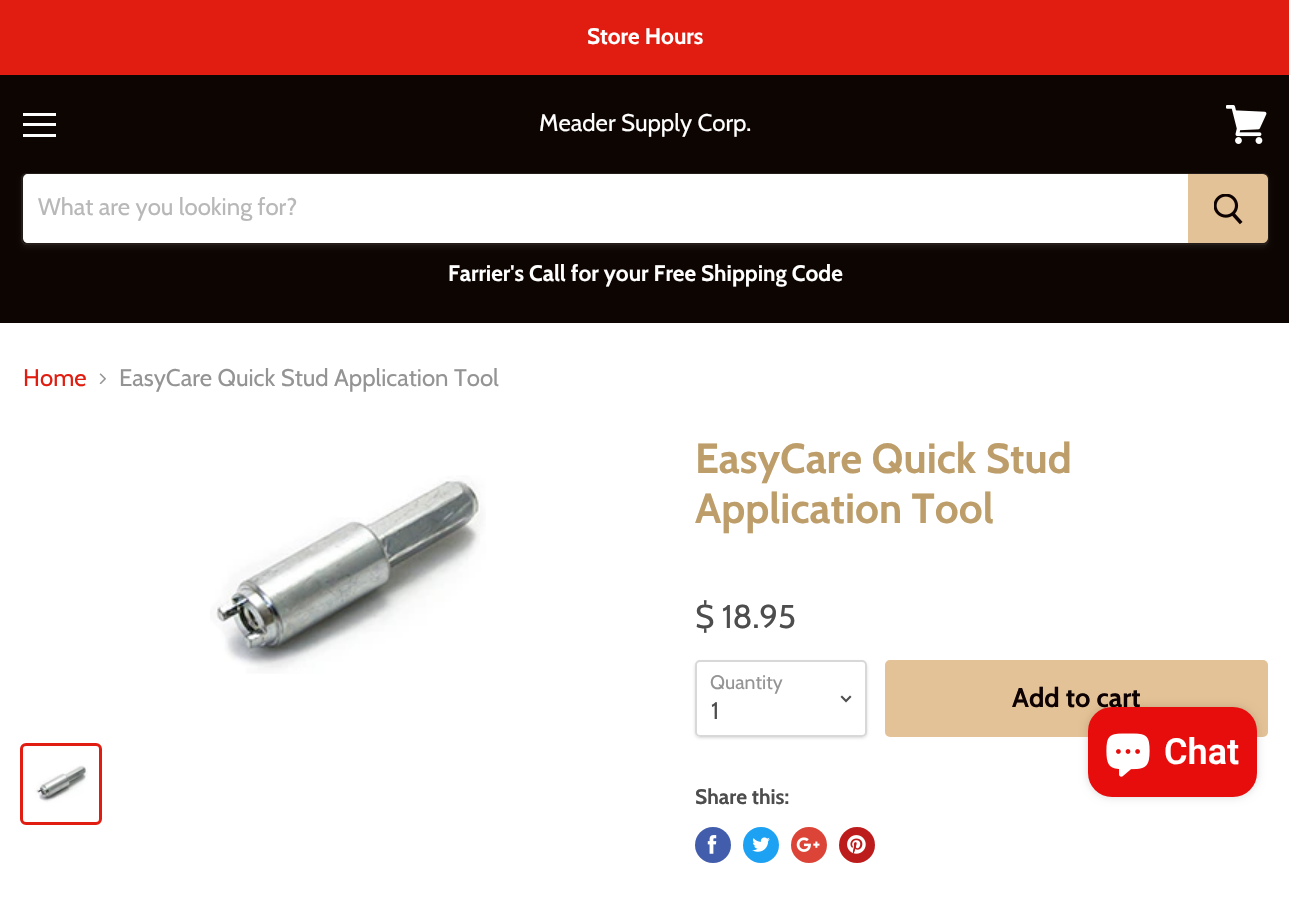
void draw(SkCanvas* canvas) {
    SkPaint paint;
    paint.setAntiAlias(true);
    auto face = [&](const char* family, int weight, float size, bool italic = false) {
        SkFontStyle style(weight, SkFontStyle::kNormal_Width,
            italic ? SkFontStyle::kItalic_Slant : SkFontStyle::kUpright_Slant);
        SkFont result(fontMgr->matchFamilyStyle(family, style), size);
        result.setSubpixel(true);
        return result;
    };
    auto write = [&](const char* s, float x, float y, const SkFont& font, SkColor color) {
        SkPaint ink(SkColor4f::FromColor(color));
        ink.setAntiAlias(true);
        canvas->drawString(s, x, y, font, ink);
    };
    auto block = [&](float x, float y, float w, float h, SkColor color) {
        SkPaint ink(SkColor4f::FromColor(color));
        ink.setAntiAlias(true);
        canvas->drawRect(SkRect::MakeXYWH(x, y, w, h), ink);
    };
    auto card = [&](float x, float y, float w, float h, float radius, SkColor color) {
        SkPaint ink(SkColor4f::FromColor(color));
        ink.setAntiAlias(true);
        canvas->drawRoundRect(SkRect::MakeXYWH(x, y, w, h), radius, radius, ink);
    };
    auto paste = [&](const char* path, float x, float y, float w, float h) {
        auto image = SkImages::DeferredFromEncodedData(SkData::MakeFromFileName(path));
        canvas->drawImageRect(image, SkRect::MakeXYWH(x, y, w, h), SkSamplingOptions());
    };
    canvas->clear(SK_ColorWHITE);
    block(0, 75, 1289, 248, SkColorSetRGB(13, 5, 1));
    block(0, 0, 1289, 75, SkColorSetRGB(225, 29, 17));
    auto kFont1 = face("Cabin", 700, 22.5f);
    write("Store Hours", 587, 44, kFont1, SK_ColorWHITE);
    block(23, 113, 33, 3, SK_ColorWHITE);
    block(23, 123, 33, 3, SK_ColorWHITE);
    block(23, 134, 33, 3, SK_ColorWHITE);
    paste("pic1.png", 1226, 105, 41, 39);
    auto kFont2 = face("Cabin", 400, 24);
    write("Meader Supply Corp.", 539, 131, kFont2, SK_ColorWHITE);
    canvas->save();
    canvas->clipPath(SkPathBuilder(SkPathFillType::kEvenOdd).moveTo(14, 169).lineTo(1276, 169).lineTo(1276, 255).lineTo(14, 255).close().moveTo(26, 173).lineTo(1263, 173).cubicTo(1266.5f, 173, 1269, 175.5f, 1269, 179).lineTo(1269, 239).cubicTo(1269, 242.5f, 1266.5f, 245, 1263, 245).lineTo(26, 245).cubicTo(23, 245, 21, 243, 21, 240).lineTo(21, 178).cubicTo(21, 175, 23, 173, 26, 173).close().detach(), true);
    paint.setColor(SkColorSetARGB(28, 127, 127, 127));
    paint.setMaskFilter(SkMaskFilter::MakeBlur(kNormal_SkBlurStyle, 2));
    canvas->drawRoundRect(SkRect::MakeXYWH(21, 176, 1248, 72), 6, 6, paint);
    paint.setMaskFilter(nullptr);
    canvas->restore();
    paint.setStyle(SkPaint::kStroke_Style);
    paint.setStrokeWidth(2);
    paint.setColor(SkColorSetARGB(51, 127, 127, 127));
    canvas->drawPath(SkPathBuilder().moveTo(26, 174).lineTo(1263, 174).cubicTo(1266, 174, 1268, 176, 1268, 179).lineTo(1268, 239).cubicTo(1268, 242, 1266, 244, 1263, 244).lineTo(26, 244).cubicTo(24, 244, 22, 242, 22, 240).lineTo(22, 178).cubicTo(22, 176, 24, 174, 26, 174).close().detach(), paint);
    paint.setStyle(SkPaint::kFill_Style);
    paint.setColor(SK_ColorWHITE);
    canvas->drawPath(SkPathBuilder().moveTo(28, 174).lineTo(1188, 174).lineTo(1188, 243).lineTo(28, 243).cubicTo(25, 243, 23, 241, 23, 238).lineTo(23, 179).cubicTo(23, 176, 25, 174, 28, 174).close().detach(), paint);
    write("What are you looking for?", 38, 215, kFont2, SkColorSetRGB(184, 184, 184));
    paint.setColor(SkColorSetRGB(228, 194, 151));
    canvas->drawPath(SkPathBuilder().moveTo(1189, 175).lineTo(1263, 175).cubicTo(1265, 175, 1267, 177, 1267, 179).lineTo(1267, 238).cubicTo(1267, 240, 1265, 242, 1263, 242).lineTo(1189, 242).close().detach(), paint);
    paint.setStyle(SkPaint::kStroke_Style);
    canvas->drawPath(SkPathBuilder().moveTo(1189, 175).lineTo(1263, 175).cubicTo(1265, 175, 1267, 177, 1267, 179).lineTo(1267, 238).cubicTo(1267, 240, 1265, 242, 1263, 242).lineTo(1189, 242).close().detach(), paint);
    paste("pic2.png", 1214, 194, 29, 31);
    write("Farrier's Call for your Free Shipping Code", 448, 281, kFont1, SK_ColorWHITE);
    write("Home", 23, 386, kFont2, SkColorSetRGB(225, 29, 17));
    paste("pic3.png", 99, 373, 7, 12);
    write("EasyCare Quick Stud Application Tool", 119, 386, kFont2, SkColorSetRGB(148, 148, 148));
    paste("pic4.png", 210, 475, 276, 199);
    paint.setStrokeWidth(3);
    paint.setColor(SkColorSetRGB(225, 29, 17));
    canvas->drawRoundRect(SkRect::MakeXYWH(21.5f, 744.5f, 79, 79), 4.5f, 4.5f, paint);
    paste("pic5.png", 34, 765, 54, 38);
    auto kFont3 = face("Cabin", 700, 42);
    write("EasyCare Quick Stud", 695, 473, kFont3, SkColorSetRGB(189, 158, 106));
    write("Application Tool", 695, 523, kFont3, SkColorSetRGB(189, 158, 106));
    auto kFont4 = face("Cabin", 400, 33);
    write("$ 18.95", 695, 628, kFont4, SkColorSetRGB(77, 77, 77));
    canvas->save();
    canvas->clipPath(SkPathBuilder(SkPathFillType::kEvenOdd).moveTo(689, 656).lineTo(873, 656).lineTo(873, 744).lineTo(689, 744).close().moveTo(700, 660).lineTo(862, 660).cubicTo(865, 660, 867, 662, 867, 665).lineTo(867, 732).cubicTo(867, 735, 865, 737, 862, 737).lineTo(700, 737).cubicTo(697, 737, 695, 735, 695, 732).lineTo(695, 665).cubicTo(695, 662, 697, 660, 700, 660).close().detach(), true);
    paint.setStyle(SkPaint::kFill_Style);
    paint.setColor(SkColorSetARGB(38, 0, 0, 0));
    paint.setMaskFilter(SkMaskFilter::MakeBlur(kNormal_SkBlurStyle, 1.5f));
    canvas->drawRoundRect(SkRect::MakeXYWH(695, 662, 172, 76), 5, 5, paint);
    paint.setMaskFilter(nullptr);
    canvas->restore();
    paint.setStyle(SkPaint::kStroke_Style);
    paint.setStrokeWidth(2);
    paint.setColor(SkColorSetARGB(77, 127, 127, 127));
    canvas->drawRoundRect(SkRect::MakeXYWH(696, 661, 170, 75), 4, 4, paint);
    auto kFont5 = face("Cabin", 400, 19.5f);
    write("Quantity", 710, 689, kFont5, SkColorSetRGB(148, 148, 148));
    paste("pic6.png", 840, 695, 12, 8);
    write("1", 711, 719, kFont2, SkColorSetRGB(77, 77, 77));
    paint.setStyle(SkPaint::kFill_Style);
    paint.setColor(SkColorSetRGB(228, 194, 151));
    canvas->drawRoundRect(SkRect::MakeXYWH(886, 661, 381, 75), 4, 4, paint);
    paint.setStyle(SkPaint::kStroke_Style);
    canvas->drawRoundRect(SkRect::MakeXYWH(886, 661, 381, 75), 4, 4, paint);
    auto kFont6 = face("Cabin", 700, 27);
    write("Add to cart", 1012, 707, kFont6, SkColorSetRGB(13, 2, 1));
    auto kFont7 = face("Cabin", 700, 21);
    write("Share this:", 695, 804, kFont7, SkColorSetRGB(77, 77, 77));
    paint.setStyle(SkPaint::kFill_Style);
    paint.setColor(SkColorSetRGB(66, 93, 171));
    canvas->drawCircle(713, 845, 18, paint);
    paste("pic7.png", 707, 835, 10, 19);
    paint.setColor(SkColorSetRGB(29, 161, 242));
    canvas->drawCircle(761, 845, 18, paint);
    paste("pic8.png", 752, 837, 18, 15);
    paint.setColor(SkColorSetRGB(219, 68, 55));
    canvas->drawCircle(809, 845, 18, paint);
    paste("pic9.png", 796, 837, 24, 15);
    paint.setColor(SkColorSetRGB(189, 28, 28));
    canvas->drawCircle(857, 845, 18, paint);
    paste("pic10.png", 847, 835, 19, 19);
    paint.setColor(SkColorSetARGB(38, 0, 0, 0));
    paint.setMaskFilter(SkMaskFilter::MakeBlur(kNormal_SkBlurStyle, 4));
    canvas->drawRoundRect(SkRect::MakeXYWH(1088, 707, 169, 90), 24, 24, paint);
    paint.setMaskFilter(nullptr);
    card(1088, 707, 169, 90, 24, SkColorSetRGB(231, 13, 13));
    paste("pic11.png", 1106, 733, 44, 44);
    auto kFont8 = face("Roboto", 600, 36);
    write("Chat", 1164, 764, kFont8, SK_ColorWHITE);
}
